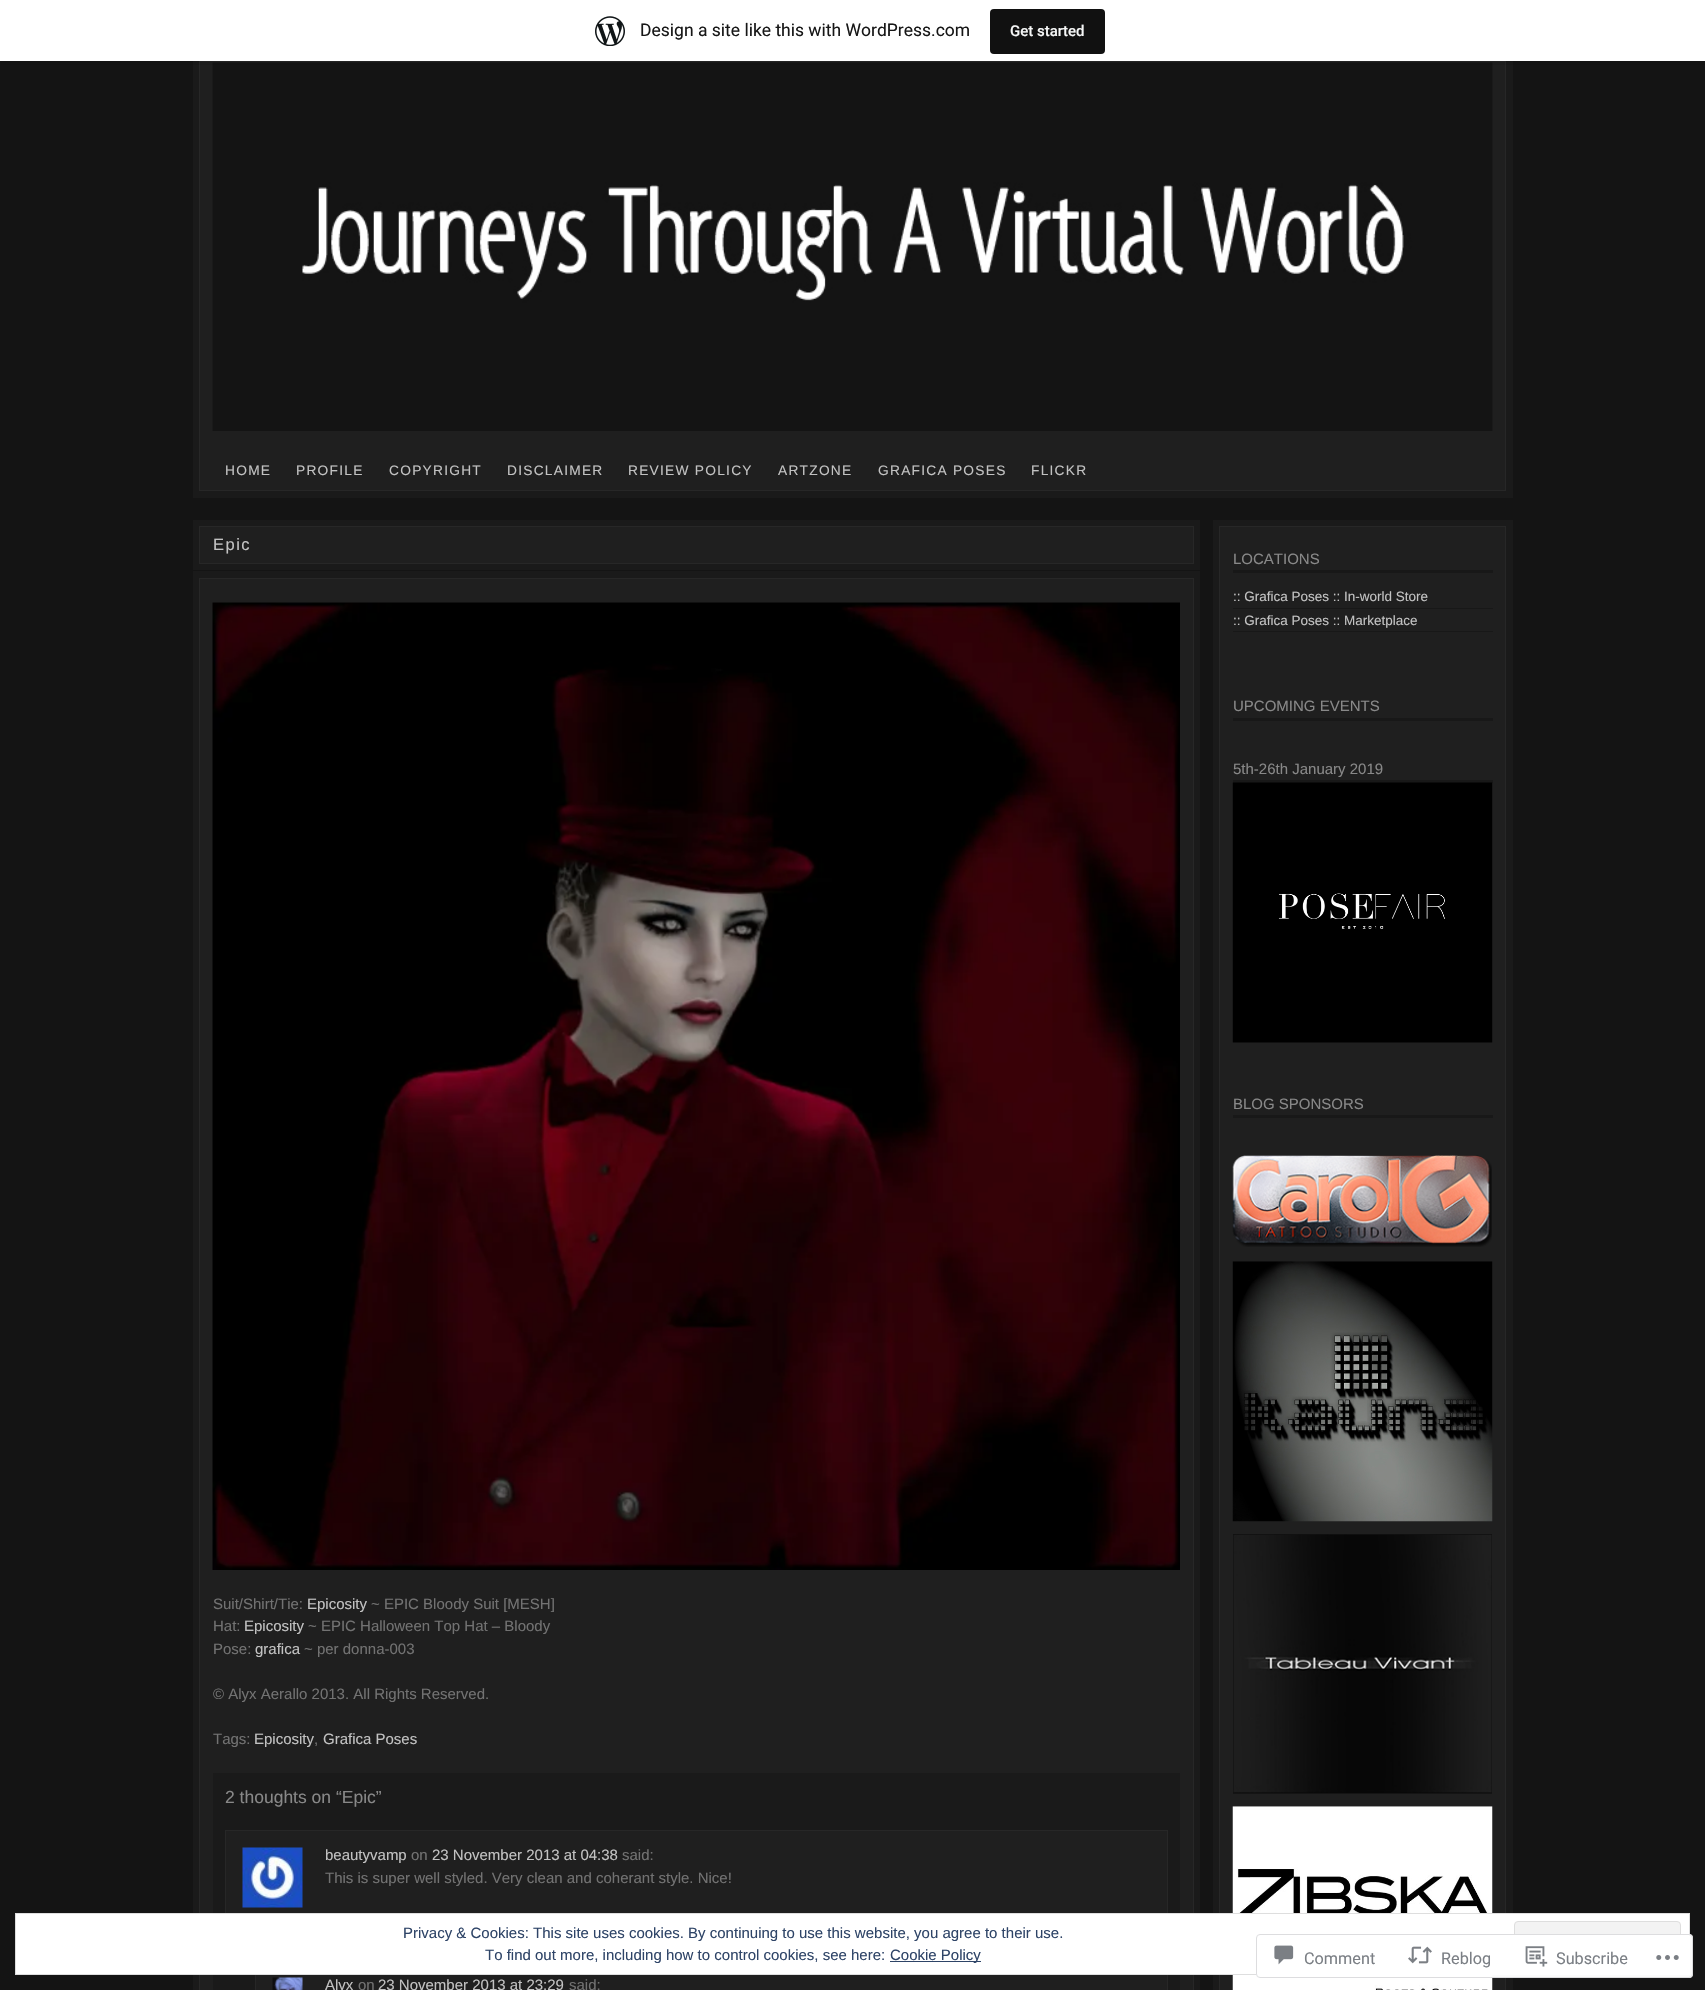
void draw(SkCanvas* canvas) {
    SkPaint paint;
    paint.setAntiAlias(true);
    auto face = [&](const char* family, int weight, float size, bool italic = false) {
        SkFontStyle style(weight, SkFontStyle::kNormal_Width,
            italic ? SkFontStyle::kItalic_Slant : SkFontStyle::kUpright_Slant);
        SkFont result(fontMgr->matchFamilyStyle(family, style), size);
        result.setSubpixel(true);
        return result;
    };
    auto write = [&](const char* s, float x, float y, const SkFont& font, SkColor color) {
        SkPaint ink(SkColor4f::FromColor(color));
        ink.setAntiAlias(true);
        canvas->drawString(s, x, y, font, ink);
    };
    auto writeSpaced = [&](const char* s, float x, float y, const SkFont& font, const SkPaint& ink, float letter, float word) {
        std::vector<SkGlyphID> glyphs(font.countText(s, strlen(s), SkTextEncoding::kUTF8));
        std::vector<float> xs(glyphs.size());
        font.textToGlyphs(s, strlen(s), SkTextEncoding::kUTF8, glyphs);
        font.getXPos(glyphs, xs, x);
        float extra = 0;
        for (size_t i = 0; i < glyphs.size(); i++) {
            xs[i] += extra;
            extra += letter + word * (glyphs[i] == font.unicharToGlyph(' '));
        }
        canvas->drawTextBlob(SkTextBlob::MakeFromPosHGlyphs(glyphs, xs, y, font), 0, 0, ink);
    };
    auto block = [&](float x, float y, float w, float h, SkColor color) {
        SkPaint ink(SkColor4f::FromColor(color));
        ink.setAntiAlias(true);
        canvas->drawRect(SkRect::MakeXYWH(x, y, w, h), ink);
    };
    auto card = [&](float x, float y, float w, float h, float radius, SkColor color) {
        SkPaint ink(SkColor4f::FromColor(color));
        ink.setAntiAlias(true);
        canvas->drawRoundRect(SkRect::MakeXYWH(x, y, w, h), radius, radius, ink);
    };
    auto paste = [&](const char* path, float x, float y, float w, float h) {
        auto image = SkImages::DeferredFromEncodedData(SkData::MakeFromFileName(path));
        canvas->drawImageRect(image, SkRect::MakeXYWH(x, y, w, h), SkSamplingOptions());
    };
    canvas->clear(SkColorSetRGB(20, 20, 20));
    block(193, 61, 1320, 437, SkColorSetRGB(26, 26, 26));
    paint.setColor(SkColorSetRGB(31, 31, 31));
    canvas->drawRect(SkRect::MakeXYWH(199.5f, 61.5f, 1306, 429), paint);
    paint.setStyle(SkPaint::kStroke_Style);
    paint.setStrokeWidth(1);
    paint.setColor(SkColorSetRGB(39, 39, 39));
    canvas->drawRect(SkRect::MakeXYWH(199.5f, 61.5f, 1306, 429), paint);
    paste("pic2.png", 212, 62, 1281, 369);
    paint.setStyle(SkPaint::kFill_Style);
    paint.setColor(SkColorSetARGB(20, 0, 0, 0));
    canvas->drawPath(SkPathBuilder().moveTo(1, 61).lineTo(1, 65).lineTo(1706, 65).lineTo(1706, 4).lineTo(1705, 4).lineTo(1705, 61).close().detach(), paint);
    block(0, 0, 1705, 61, SK_ColorWHITE);
    paste("pic1.png", 595, 16, 30, 30);
    auto kFont1 = face("Roboto", 400, 17.5f);
    write("Design a site like this with WordPress.com", 640, 36, kFont1, SkColorSetRGB(23, 23, 23));
    card(990, 9, 115, 45, 4, SkColorSetRGB(17, 17, 17));
    auto kFont2 = face("Roboto", 500, 15);
    write("Get started", 1010, 36, kFont2, SkColorSetRGB(246, 247, 247));
    auto kFont3 = face("Liberation Sans", 400, 13.75f);
    paint.setColor(SkColorSetRGB(194, 194, 194));
    writeSpaced("HOME", 225, 475, kFont3, paint, 1.25f, 0);
    writeSpaced("PROFILE", 296, 475, kFont3, paint, 1.25f, 0);
    writeSpaced("COPYRIGHT", 389, 475, kFont3, paint, 1.25f, 0);
    writeSpaced("DISCLAIMER", 507, 475, kFont3, paint, 1.25f, 0);
    writeSpaced("REVIEW POLICY", 628, 475, kFont3, paint, 1.25f, 0);
    writeSpaced("ARTZONE", 778, 475, kFont3, paint, 1.25f, 0);
    writeSpaced("GRAFICA POSES", 878, 475, kFont3, paint, 1.25f, 0);
    writeSpaced("FLICKR", 1031, 475, kFont3, paint, 1.25f, 0);
    block(193, 520, 1007, 50, SkColorSetRGB(26, 26, 26));
    paint.setColor(SkColorSetRGB(31, 31, 31));
    canvas->drawRect(SkRect::MakeXYWH(199.5f, 526.5f, 994, 37), paint);
    paint.setStyle(SkPaint::kStroke_Style);
    paint.setColor(SkColorSetRGB(39, 39, 39));
    canvas->drawRect(SkRect::MakeXYWH(199.5f, 526.5f, 994, 37), paint);
    auto kFont4 = face("Liberation Sans", 400, 16.5f);
    paint.setStyle(SkPaint::kFill_Style);
    paint.setColor(SkColorSetRGB(194, 194, 194));
    writeSpaced("Epic", 213, 550, kFont4, paint, 1.5f, 0);
    block(193, 571, 1007, 1419, SkColorSetRGB(26, 26, 26));
    paint.setColor(SkColorSetRGB(31, 31, 31));
    canvas->drawRect(SkRect::MakeXYWH(199.5f, 578.5f, 994, 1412), paint);
    paint.setStyle(SkPaint::kStroke_Style);
    paint.setColor(SkColorSetRGB(39, 39, 39));
    canvas->drawRect(SkRect::MakeXYWH(199.5f, 578.5f, 994, 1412), paint);
    paste("pic3.png", 212, 602, 968, 968);
    auto kFont5 = face("Liberation Sans", 400, 15);
    write("Suit/Shirt/Tie:", 213, 1609, kFont5, SkColorSetRGB(114, 114, 114));
    write("Epicosity", 307, 1609, kFont5, SkColorSetRGB(194, 194, 194));
    write("~ EPIC Bloody Suit [MESH]", 371, 1609, kFont5, SkColorSetRGB(114, 114, 114));
    write("Hat:", 213, 1631, kFont5, SkColorSetRGB(114, 114, 114));
    write("Epicosity", 244, 1631, kFont5, SkColorSetRGB(194, 194, 194));
    write("~ EPIC Halloween Top Hat – Bloody", 308, 1631, kFont5, SkColorSetRGB(114, 114, 114));
    write("Pose:", 213, 1654, kFont5, SkColorSetRGB(114, 114, 114));
    write("grafica", 255, 1654, kFont5, SkColorSetRGB(194, 194, 194));
    write("~ per donna-003", 304, 1654, kFont5, SkColorSetRGB(114, 114, 114));
    write("© Alyx Aerallo 2013. All Rights Reserved.", 213, 1699, kFont5, SkColorSetRGB(114, 114, 114));
    write("Tags:", 213, 1744, kFont5, SkColorSetRGB(114, 114, 114));
    write("Epicosity", 254, 1744, kFont5, SkColorSetRGB(194, 194, 194));
    write(",", 314, 1744, kFont5, SkColorSetRGB(114, 114, 114));
    write("Grafica Poses", 323, 1744, kFont5, SkColorSetRGB(194, 194, 194));
    block(213, 1773, 967, 217, SkColorSetRGB(26, 26, 26));
    auto kFont6 = face("Liberation Sans", 400, 17.5f);
    write("2 thoughts on “Epic”", 225, 1803, kFont6, SkColorSetRGB(136, 136, 136));
    block(226, 1831, 941, 82, SkColorSetRGB(31, 31, 31));
    canvas->drawRect(SkRect::MakeXYWH(225.5f, 1830.5f, 942, 129), paint);
    paste("pic4.png", 242, 1847, 61, 61);
    write("beautyvamp", 325, 1860, kFont5, SkColorSetRGB(194, 194, 194));
    write("on", 411, 1860, kFont5, SkColorSetRGB(114, 114, 114));
    write("23 November 2013 at 04:38", 432, 1860, kFont5, SkColorSetRGB(194, 194, 194));
    write("said:", 622, 1860, kFont5, SkColorSetRGB(114, 114, 114));
    write("This is super well styled. Very clean and coherant style. Nice!", 325, 1883, kFont5, SkColorSetRGB(114, 114, 114));
    block(256, 1975, 911, 15, SkColorSetRGB(31, 31, 31));
    canvas->drawRect(SkRect::MakeXYWH(255.5f, 1960.5f, 912, 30), paint);
    paste("pic5.png", 272, 1977, 31, 13);
    write("Alyx", 325, 1990, kFont5, SkColorSetRGB(194, 194, 194));
    write("on", 358, 1990, kFont5, SkColorSetRGB(114, 114, 114));
    write("23 November 2013 at 23:29", 378, 1990, kFont5, SkColorSetRGB(194, 194, 194));
    write("said:", 569, 1990, kFont5, SkColorSetRGB(114, 114, 114));
    block(1213, 520, 300, 1470, SkColorSetRGB(26, 26, 26));
    paint.setStyle(SkPaint::kFill_Style);
    paint.setColor(SkColorSetRGB(31, 31, 31));
    canvas->drawRect(SkRect::MakeXYWH(1219.5f, 526.5f, 286, 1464), paint);
    paint.setStyle(SkPaint::kStroke_Style);
    paint.setColor(SkColorSetRGB(39, 39, 39));
    canvas->drawRect(SkRect::MakeXYWH(1219.5f, 526.5f, 286, 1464), paint);
    block(1233, 570, 260, 3, SkColorSetRGB(24, 24, 24));
    write("LOCATIONS", 1233, 564, kFont5, SkColorSetRGB(136, 136, 136));
    block(1233, 608, 260, 1, SkColorSetRGB(24, 24, 24));
    auto kFont7 = face("Liberation Sans", 400, 13.5f);
    write(":: Grafica Poses :: In-world Store", 1233, 601, kFont7, SkColorSetRGB(194, 194, 194));
    block(1233, 631, 260, 1, SkColorSetRGB(24, 24, 24));
    write(":: Grafica Poses :: Marketplace", 1233, 625, kFont7, SkColorSetRGB(194, 194, 194));
    block(1233, 718, 260, 3, SkColorSetRGB(24, 24, 24));
    write("UPCOMING EVENTS", 1233, 711, kFont5, SkColorSetRGB(136, 136, 136));
    block(1233, 780, 260, 3, SkColorSetRGB(24, 24, 24));
    write("5th-26th January 2019", 1233, 774, kFont5, SkColorSetRGB(136, 136, 136));
    paste("pic6.png", 1232, 782, 261, 261);
    block(1233, 1115, 260, 3, SkColorSetRGB(24, 24, 24));
    write("BLOG SPONSORS", 1233, 1109, kFont5, SkColorSetRGB(136, 136, 136));
    paste("pic7.png", 1232, 1155, 260, 92);
    paste("pic8.png", 1232, 1261, 261, 261);
    paste("pic9.png", 1233, 1534, 259, 260);
    paste("pic10.png", 1232, 1806, 261, 184);
    paint.setStyle(SkPaint::kFill_Style);
    paint.setColor(SK_ColorWHITE);
    canvas->drawRect(SkRect::MakeXYWH(15.5f, 1913.5f, 1674, 61), paint);
    paint.setStyle(SkPaint::kStroke_Style);
    paint.setColor(SkColorSetRGB(222, 222, 222));
    canvas->drawRect(SkRect::MakeXYWH(15.5f, 1913.5f, 1674, 61), paint);
    write("Privacy & Cookies: This site uses cookies. By continuing to use this website, you agree to their use.", 403, 1938, kFont5, SkColorSetRGB(46, 68, 103));
    paint.setStyle(SkPaint::kFill_Style);
    paint.setColor(SkColorSetRGB(243, 243, 243));
    canvas->drawRoundRect(SkRect::MakeXYWH(1514.5f, 1921.5f, 166, 44), 3.5f, 3.5f, paint);
    paint.setStyle(SkPaint::kStroke_Style);
    paint.setColor(SkColorSetRGB(222, 222, 222));
    canvas->drawRoundRect(SkRect::MakeXYWH(1514.5f, 1921.5f, 166, 44), 3.5f, 3.5f, paint);
    write("To find out more, including how to control cookies, see here:", 485, 1960, kFont5, SkColorSetRGB(46, 68, 103));
    block(890, 1961, 91, 1, SkColorSetRGB(46, 68, 103));
    write("Cookie Policy", 890, 1960, kFont5, SkColorSetRGB(46, 68, 103));
    card(1256, 1934, 437, 44, 4, SkColorSetARGB(250, 255, 255, 255));
    paint.setColor(SkColorSetARGB(250, 220, 220, 222));
    canvas->drawRoundRect(SkRect::MakeXYWH(1256.5f, 1934.5f, 436, 43), 3.5f, 3.5f, paint);
    paste("pic11.png", 1274, 1945, 20, 20);
    auto kFont8 = face("Roboto", 400, 16.25f);
    write("Comment", 1304, 1964, kFont8, SkColorSetRGB(123, 127, 133));
    paste("pic12.png", 1408, 1946, 24, 18);
    write("Reblog", 1441, 1964, kFont8, SkColorSetRGB(123, 127, 133));
    paste("pic13.png", 1525, 1946, 23, 21);
    write("Subscribe", 1556, 1964, kFont8, SkColorSetRGB(123, 127, 133));
    paste("pic14.png", 1656, 1955, 23, 5);
}
